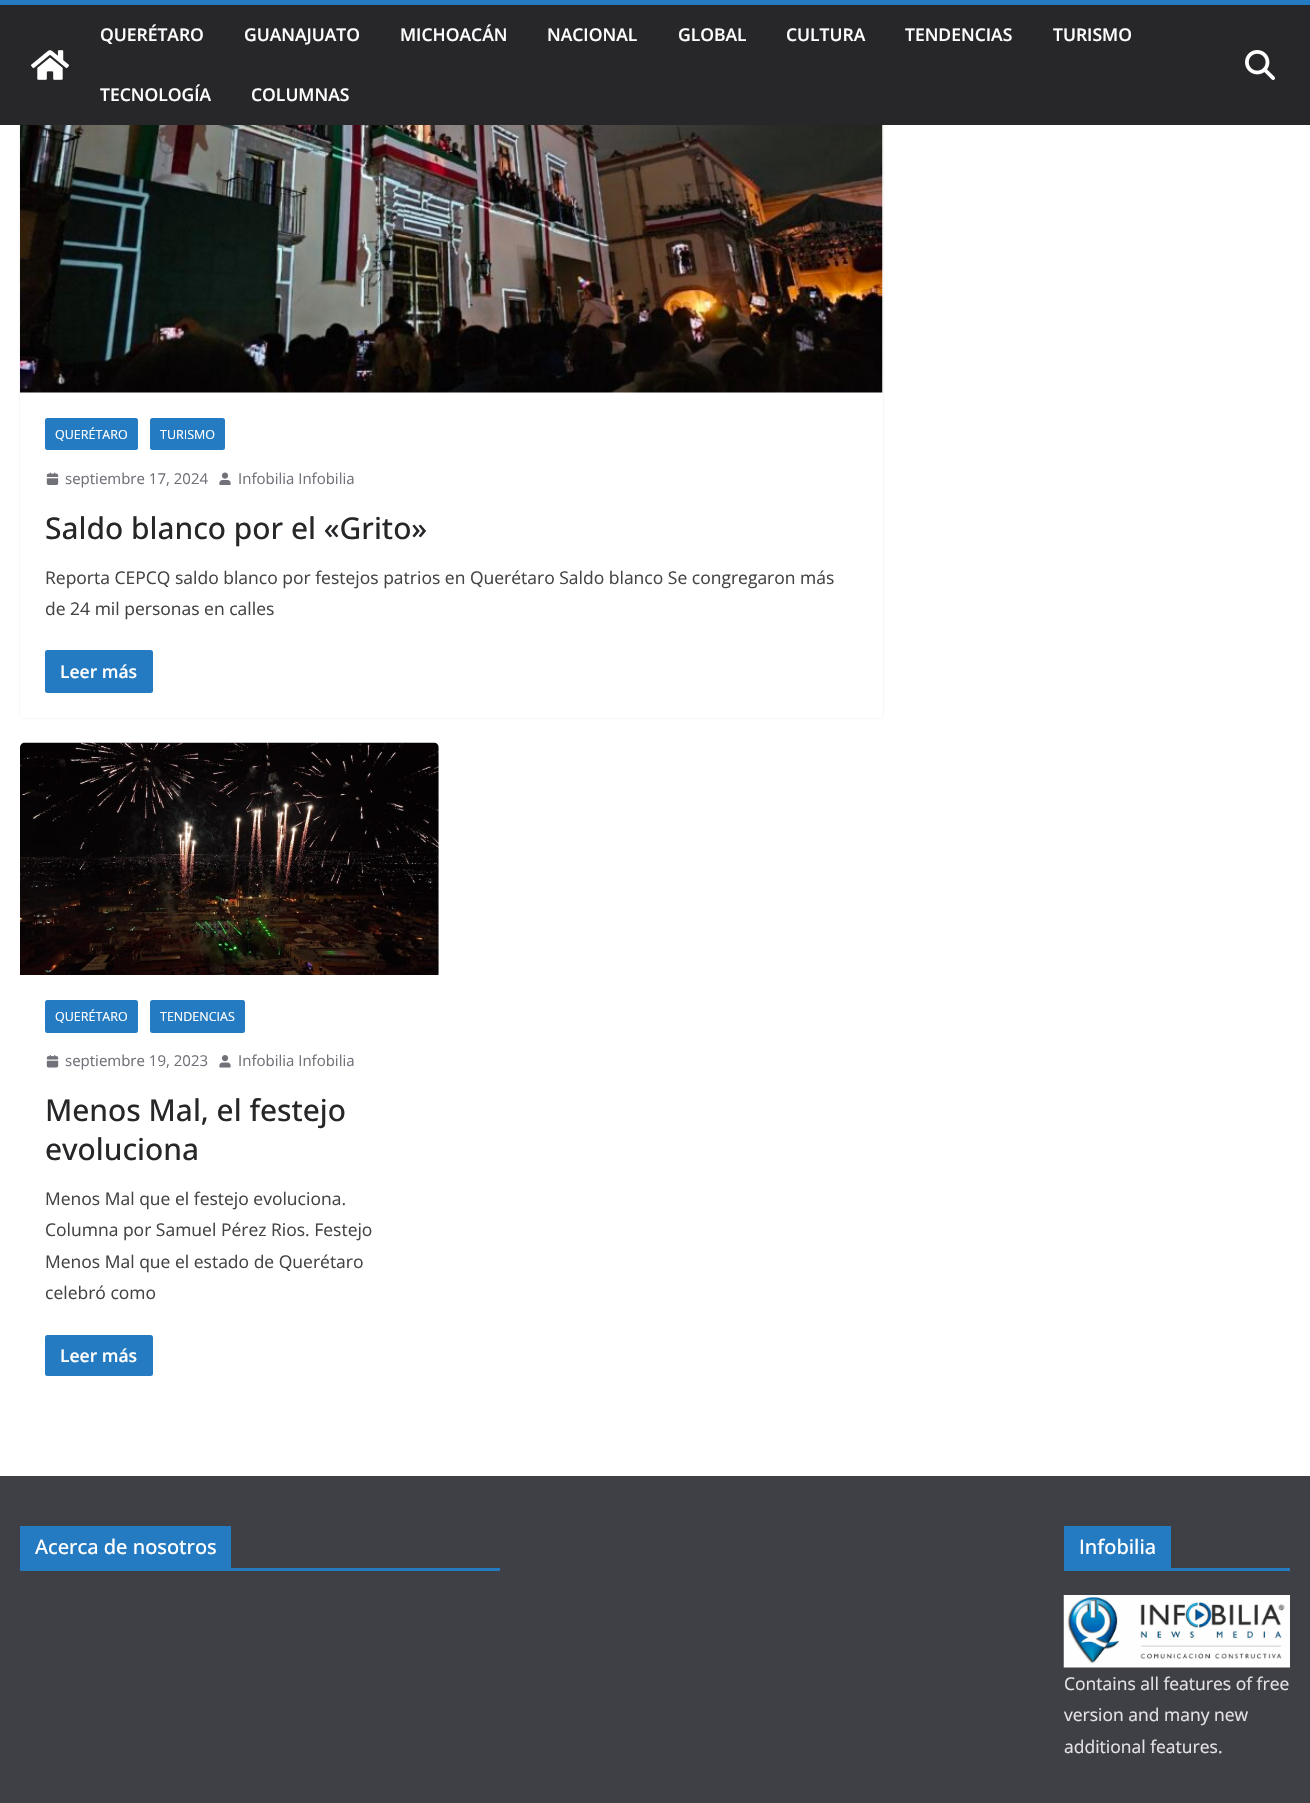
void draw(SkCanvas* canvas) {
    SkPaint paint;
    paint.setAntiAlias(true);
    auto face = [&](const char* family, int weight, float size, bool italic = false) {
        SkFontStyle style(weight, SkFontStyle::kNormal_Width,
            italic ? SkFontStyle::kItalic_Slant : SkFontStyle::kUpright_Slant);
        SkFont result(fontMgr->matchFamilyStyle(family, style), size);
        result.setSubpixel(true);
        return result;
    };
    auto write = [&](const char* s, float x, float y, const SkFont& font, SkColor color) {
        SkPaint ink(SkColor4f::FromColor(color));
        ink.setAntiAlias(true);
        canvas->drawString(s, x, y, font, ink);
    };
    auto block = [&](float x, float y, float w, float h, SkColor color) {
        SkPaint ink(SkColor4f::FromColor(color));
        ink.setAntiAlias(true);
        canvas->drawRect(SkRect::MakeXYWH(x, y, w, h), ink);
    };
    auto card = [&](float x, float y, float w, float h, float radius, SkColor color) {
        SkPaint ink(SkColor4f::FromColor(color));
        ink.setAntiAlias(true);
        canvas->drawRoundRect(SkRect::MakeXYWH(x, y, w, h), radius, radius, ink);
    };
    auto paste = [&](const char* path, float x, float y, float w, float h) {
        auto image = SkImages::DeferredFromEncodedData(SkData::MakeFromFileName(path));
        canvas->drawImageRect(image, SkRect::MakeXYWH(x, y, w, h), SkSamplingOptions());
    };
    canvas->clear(SK_ColorWHITE);
    canvas->save();
    canvas->clipPath(SkPathBuilder(SkPathFillType::kEvenOdd).moveTo(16, 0).lineTo(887, 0).lineTo(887, 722).lineTo(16, 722).close().moveTo(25, -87).lineTo(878, -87).cubicTo(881, -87, 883, -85, 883, -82).lineTo(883, 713).cubicTo(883, 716, 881, 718, 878, 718).lineTo(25, 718).cubicTo(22, 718, 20, 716, 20, 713).lineTo(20, -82).cubicTo(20, -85, 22, -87, 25, -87).close().detach(), true);
    paint.setColor(SkColorSetRGB(228, 228, 231));
    paint.setMaskFilter(SkMaskFilter::MakeBlur(kNormal_SkBlurStyle, 1));
    canvas->drawRoundRect(SkRect::MakeXYWH(20, -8, 863, 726), 5, 5, paint);
    paint.setMaskFilter(nullptr);
    canvas->restore();
    block(0, 5, 1310, 120, SkColorSetRGB(39, 39, 42));
    block(0, 0, 1310, 5, SkColorSetRGB(37, 123, 193));
    paste("pic1.png", 31, 50, 38, 30);
    auto kFont1 = face("Open Sans", 600, 17.5f);
    write("QUERÉTARO", 100, 41, kFont1, SK_ColorWHITE);
    write("GUANAJUATO", 244, 41, kFont1, SK_ColorWHITE);
    write("MICHOACÁN", 400, 41, kFont1, SK_ColorWHITE);
    write("NACIONAL", 547, 41, kFont1, SK_ColorWHITE);
    write("GLOBAL", 678, 41, kFont1, SK_ColorWHITE);
    write("CULTURA", 786, 41, kFont1, SK_ColorWHITE);
    write("TENDENCIAS", 905, 41, kFont1, SK_ColorWHITE);
    write("TURISMO", 1053, 41, kFont1, SK_ColorWHITE);
    write("TECNOLOGÍA", 100, 101, kFont1, SK_ColorWHITE);
    write("COLUMNAS", 251, 101, kFont1, SK_ColorWHITE);
    paste("pic2.png", 1245, 50, 30, 30);
    paste("pic3.png", 20, 125, 863, 268);
    card(45, 418, 93, 32, 2.5f, SkColorSetRGB(37, 123, 193));
    auto kFont2 = face("Open Sans", 400, 12.5f);
    write("QUERÉTARO", 55, 439, kFont2, SK_ColorWHITE);
    card(150, 418, 75, 32, 2.5f, SkColorSetRGB(37, 123, 193));
    write("TURISMO", 160, 439, kFont2, SK_ColorWHITE);
    paste("pic4.png", 46, 472, 13, 13);
    auto kFont3 = face("Open Sans", 400, 15);
    write("septiembre 17, 2024", 65, 484, kFont3, SkColorSetRGB(113, 113, 122));
    paste("pic5.png", 219, 472, 12, 13);
    write("Infobilia Infobilia", 238, 484, kFont3, SkColorSetRGB(113, 113, 122));
    auto kFont4 = face("Open Sans", 500, 30);
    write("Saldo blanco por el «Grito»", 45, 539, kFont4, SkColorSetRGB(39, 39, 42));
    auto kFont5 = face("Open Sans", 400, 17.5f);
    write("Reporta CEPCQ saldo blanco por festejos patrios en Querétaro Saldo blanco Se congregaron más", 45, 584, kFont5, SkColorSetRGB(68, 68, 68));
    write("de 24 mil personas en calles", 45, 615, kFont5, SkColorSetRGB(68, 68, 68));
    card(45, 650, 108, 43, 2.5f, SkColorSetRGB(37, 123, 193));
    write("Leer más", 60, 678, kFont1, SK_ColorWHITE);
    paste("pic6.png", 20, 742, 419, 233);
    card(45, 1000, 93, 33, 2.5f, SkColorSetRGB(37, 123, 193));
    write("QUERÉTARO", 55, 1021, kFont2, SK_ColorWHITE);
    card(150, 1000, 95, 33, 2.5f, SkColorSetRGB(37, 123, 193));
    write("TENDENCIAS", 160, 1021, kFont2, SK_ColorWHITE);
    paste("pic7.png", 46, 1055, 13, 13);
    write("septiembre 19, 2023", 65, 1066, kFont3, SkColorSetRGB(113, 113, 122));
    paste("pic8.png", 219, 1055, 12, 13);
    write("Infobilia Infobilia", 238, 1066, kFont3, SkColorSetRGB(113, 113, 122));
    write("Menos Mal, el festejo", 45, 1121, kFont4, SkColorSetRGB(39, 39, 42));
    write("evoluciona", 45, 1160, kFont4, SkColorSetRGB(39, 39, 42));
    write("Menos Mal que el festejo evoluciona.", 45, 1205, kFont5, SkColorSetRGB(68, 68, 68));
    write("Columna por Samuel Pérez Rios. Festejo", 45, 1236, kFont5, SkColorSetRGB(68, 68, 68));
    write("Menos Mal que el estado de Querétaro", 45, 1268, kFont5, SkColorSetRGB(68, 68, 68));
    write("celebró como", 45, 1299, kFont5, SkColorSetRGB(68, 68, 68));
    card(45, 1335, 108, 41, 2.5f, SkColorSetRGB(37, 123, 193));
    write("Leer más", 60, 1362, kFont1, SK_ColorWHITE);
    block(0, 1476, 1310, 327, SkColorSetRGB(63, 63, 70));
    block(20, 1568, 480, 3, SkColorSetRGB(37, 123, 193));
    block(20, 1526, 211, 42, SkColorSetRGB(37, 123, 193));
    auto kFont6 = face("Open Sans", 500, 20);
    write("Acerca de nosotros", 35, 1554, kFont6, SK_ColorWHITE);
    block(1064, 1568, 226, 3, SkColorSetRGB(37, 123, 193));
    block(1064, 1526, 107, 42, SkColorSetRGB(37, 123, 193));
    write("Infobilia", 1079, 1554, kFont6, SK_ColorWHITE);
    paste("pic9.png", 1063, 1595, 227, 73);
    write("Contains all features of free", 1064, 1690, kFont5, SkColorSetRGB(228, 228, 231));
    write("version and many new", 1064, 1721, kFont5, SkColorSetRGB(228, 228, 231));
    write("additional features.", 1064, 1753, kFont5, SkColorSetRGB(228, 228, 231));
}
